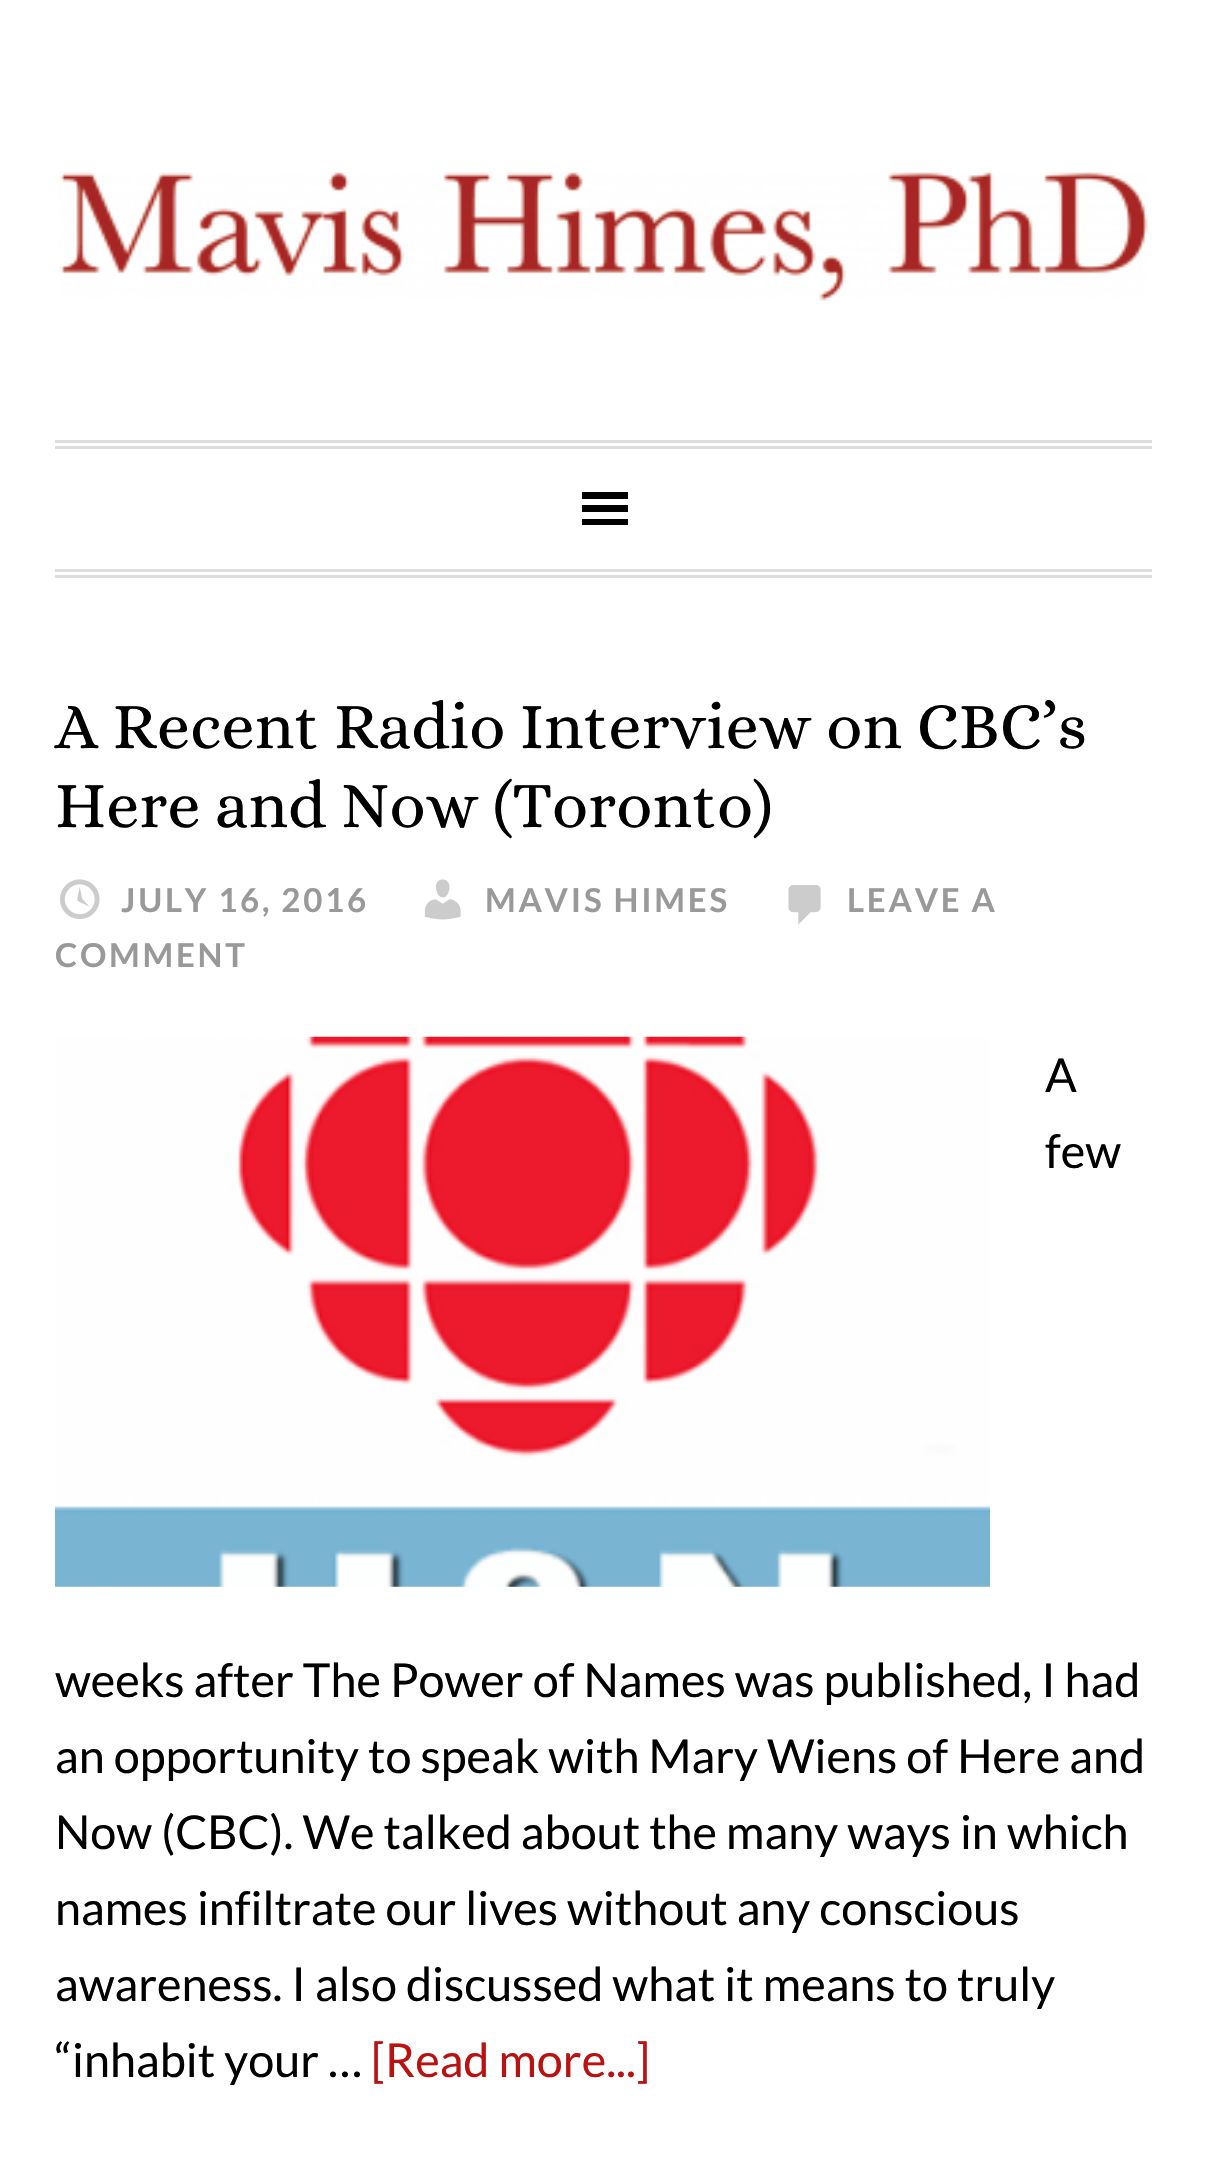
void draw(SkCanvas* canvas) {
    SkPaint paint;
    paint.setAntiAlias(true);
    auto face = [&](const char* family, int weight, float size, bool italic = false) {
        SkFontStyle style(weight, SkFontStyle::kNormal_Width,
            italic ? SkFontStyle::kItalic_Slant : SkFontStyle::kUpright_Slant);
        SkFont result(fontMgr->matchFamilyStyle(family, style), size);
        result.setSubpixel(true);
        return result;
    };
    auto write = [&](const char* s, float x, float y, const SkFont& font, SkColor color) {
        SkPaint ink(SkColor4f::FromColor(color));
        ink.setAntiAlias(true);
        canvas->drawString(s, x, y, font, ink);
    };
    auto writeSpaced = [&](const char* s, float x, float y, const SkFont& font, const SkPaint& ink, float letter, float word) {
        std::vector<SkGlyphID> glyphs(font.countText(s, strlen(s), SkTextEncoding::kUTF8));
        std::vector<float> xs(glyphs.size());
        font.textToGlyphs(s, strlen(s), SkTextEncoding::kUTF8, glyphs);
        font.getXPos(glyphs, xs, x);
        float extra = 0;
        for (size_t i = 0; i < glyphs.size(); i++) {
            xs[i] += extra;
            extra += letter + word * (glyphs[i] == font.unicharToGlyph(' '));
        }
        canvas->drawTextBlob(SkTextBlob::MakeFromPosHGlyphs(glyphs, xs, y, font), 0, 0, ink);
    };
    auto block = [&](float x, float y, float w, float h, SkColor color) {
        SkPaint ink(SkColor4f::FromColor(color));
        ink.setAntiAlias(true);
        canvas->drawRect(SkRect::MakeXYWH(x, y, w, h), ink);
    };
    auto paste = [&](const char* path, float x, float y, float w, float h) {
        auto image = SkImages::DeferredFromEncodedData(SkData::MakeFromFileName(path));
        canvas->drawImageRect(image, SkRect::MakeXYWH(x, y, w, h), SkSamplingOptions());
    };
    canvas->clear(SK_ColorWHITE);
    paste("pic1.png", 59, 172, 1089, 129);
    block(55, 440, 1097, 3, SkColorSetRGB(221, 221, 221));
    block(55, 446, 1097, 3, SkColorSetRGB(221, 221, 221));
    block(55, 569, 1097, 3, SkColorSetRGB(221, 221, 221));
    block(55, 575, 1097, 3, SkColorSetRGB(221, 221, 221));
    paint.setColor(SK_ColorBLACK);
    canvas->drawPath(SkPathBuilder().moveTo(582, 525).lineTo(628, 525).lineTo(628, 519).lineTo(582, 519).close().moveTo(582, 492).lineTo(582, 499).lineTo(628, 499).lineTo(628, 492).close().moveTo(582, 512).lineTo(628, 512).lineTo(628, 505).lineTo(582, 505).close().detach(), paint);
    auto kFont1 = face("Alice", 400, 66);
    write("A Recent Radio Interview on CBC’s", 55, 748, kFont1, SK_ColorBLACK);
    write("Here and Now (Toronto)", 55, 827, kFont1, SK_ColorBLACK);
    paste("pic2.png", 60, 879, 40, 40);
    auto kFont2 = face("Lato", 700, 33);
    paint.setColor(SkColorSetRGB(153, 153, 153));
    writeSpaced("JULY 16, 2016", 121, 912, kFont2, paint, 2.75f, 0);
    paste("pic3.png", 424, 879, 37, 41);
    writeSpaced("MAVIS HIMES", 485, 912, kFont2, paint, 2.75f, 0);
    paste("pic4.png", 788, 885, 33, 40);
    writeSpaced("LEAVE A", 847, 912, kFont2, paint, 2.75f, 0);
    writeSpaced("COMMENT", 55, 967, kFont2, paint, 2.75f, 0);
    paste("pic5.png", 55, 1036, 935, 551);
    auto kFont3 = face("Lato", 400, 46.75f);
    write("A", 1045, 1092, kFont3, SK_ColorBLACK);
    write("few", 1045, 1168, kFont3, SK_ColorBLACK);
    write("weeks after The Power of Names was published, I had", 55, 1697, kFont3, SK_ColorBLACK);
    write("an opportunity to speak with Mary Wiens of Here and", 55, 1773, kFont3, SK_ColorBLACK);
    write("Now (CBC). We talked about the many ways in which", 55, 1849, kFont3, SK_ColorBLACK);
    write("names infiltrate our lives without any conscious", 55, 1925, kFont3, SK_ColorBLACK);
    write("awareness. I also discussed what it means to truly", 55, 2001, kFont3, SK_ColorBLACK);
    write("“inhabit your …", 55, 2077, kFont3, SK_ColorBLACK);
    write("[Read more...]", 371, 2077, kFont3, SkColorSetRGB(186, 17, 17));
}
